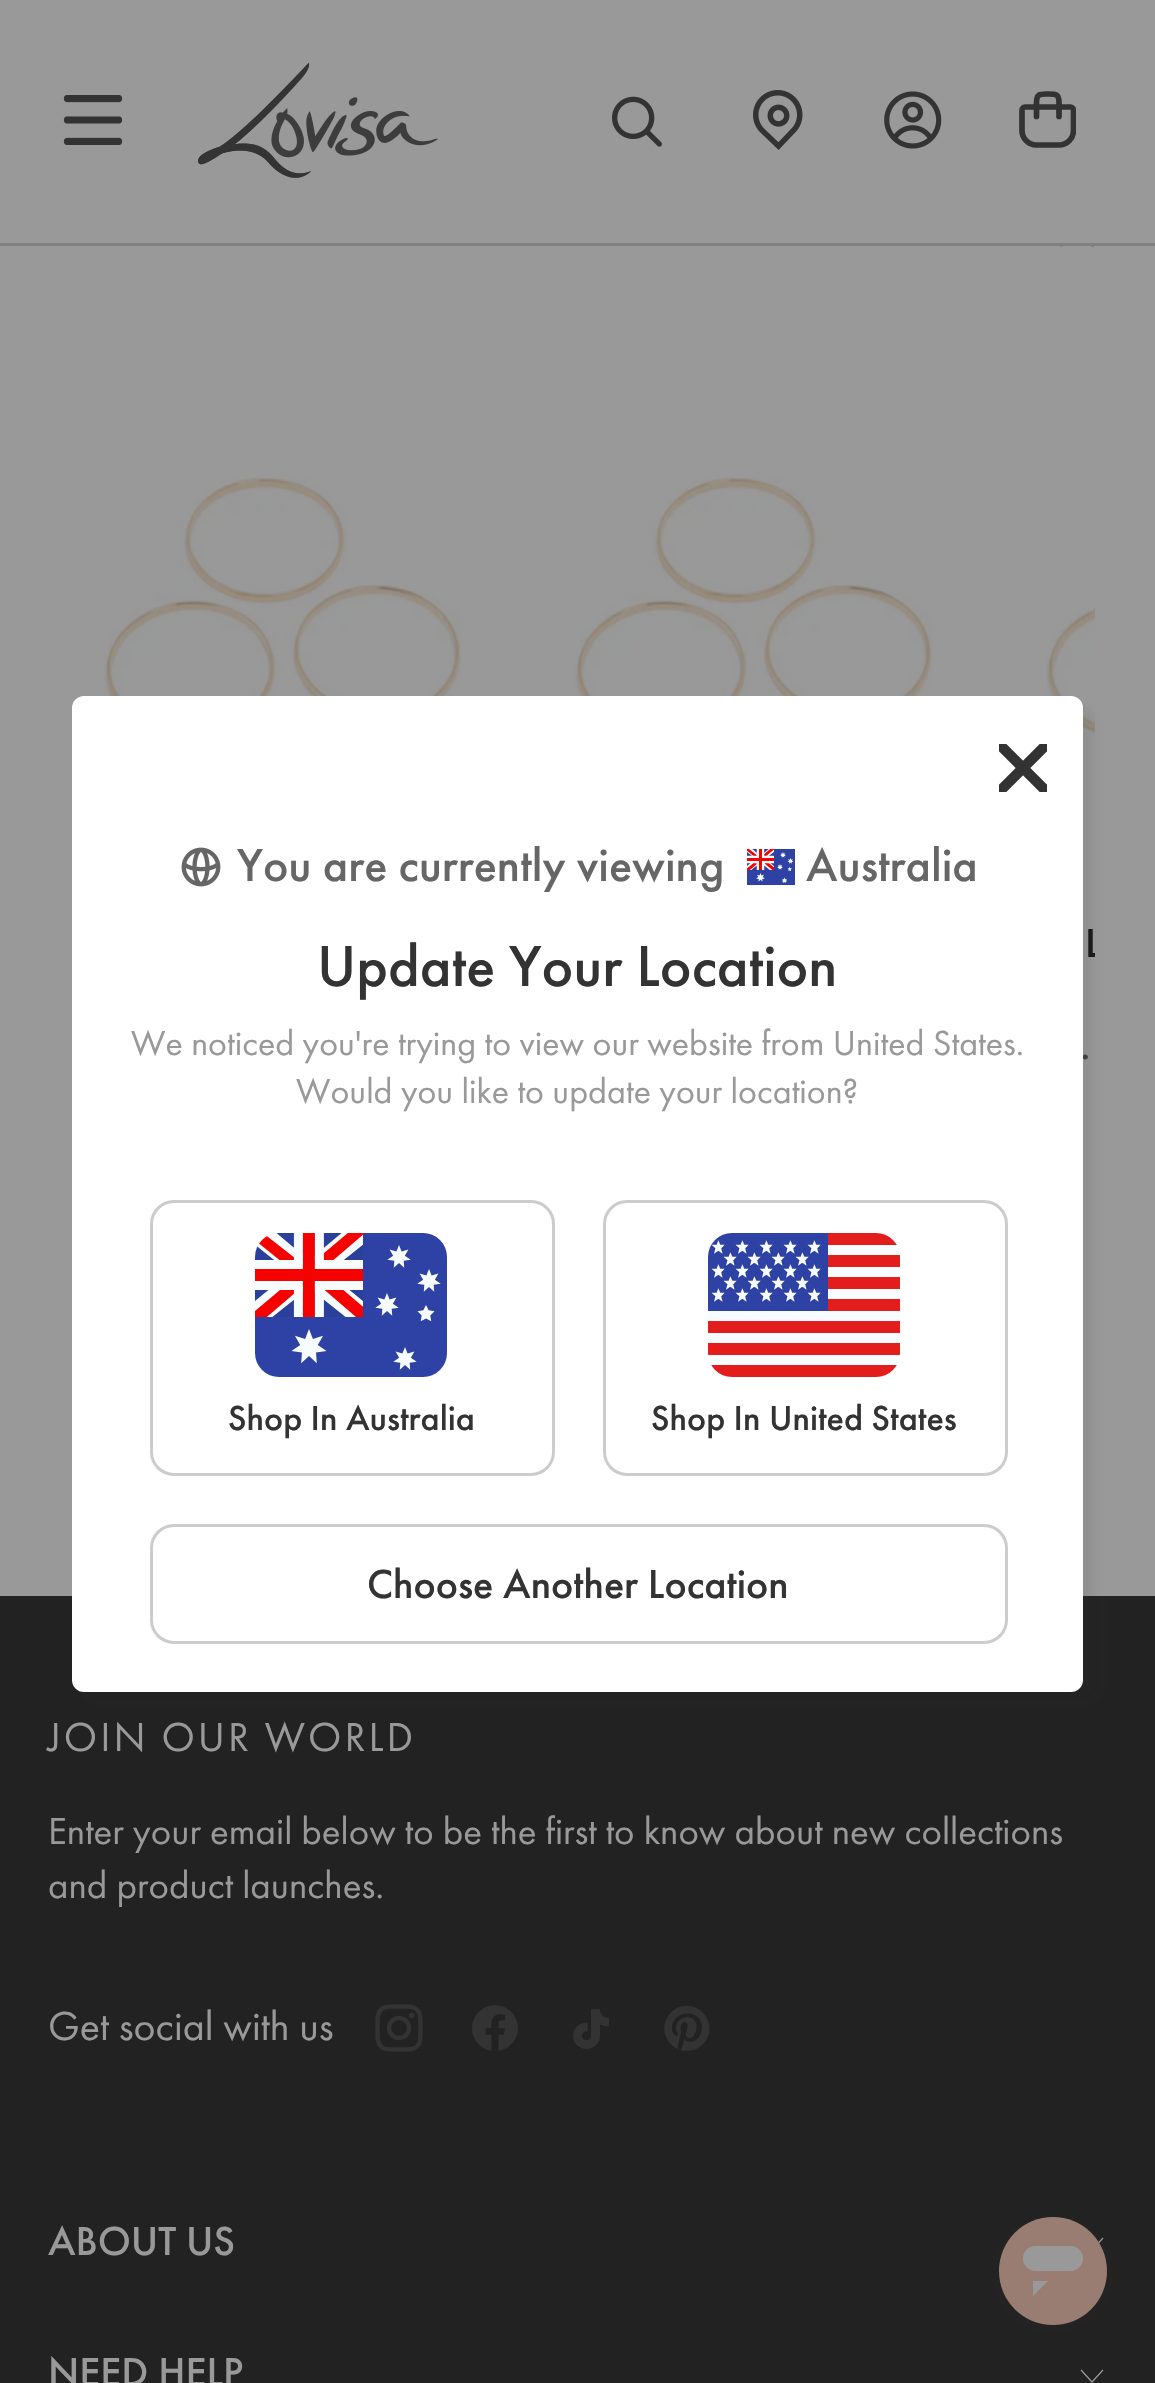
void draw(SkCanvas* canvas) {
    SkPaint paint;
    paint.setAntiAlias(true);
    auto face = [&](const char* family, int weight, float size, bool italic = false) {
        SkFontStyle style(weight, SkFontStyle::kNormal_Width,
            italic ? SkFontStyle::kItalic_Slant : SkFontStyle::kUpright_Slant);
        SkFont result(fontMgr->matchFamilyStyle(family, style), size);
        result.setSubpixel(true);
        return result;
    };
    auto write = [&](const char* s, float x, float y, const SkFont& font, SkColor color) {
        SkPaint ink(SkColor4f::FromColor(color));
        ink.setAntiAlias(true);
        canvas->drawString(s, x, y, font, ink);
    };
    auto writeSpaced = [&](const char* s, float x, float y, const SkFont& font, const SkPaint& ink, float letter, float word) {
        std::vector<SkGlyphID> glyphs(font.countText(s, strlen(s), SkTextEncoding::kUTF8));
        std::vector<float> xs(glyphs.size());
        font.textToGlyphs(s, strlen(s), SkTextEncoding::kUTF8, glyphs);
        font.getXPos(glyphs, xs, x);
        float extra = 0;
        for (size_t i = 0; i < glyphs.size(); i++) {
            xs[i] += extra;
            extra += letter + word * (glyphs[i] == font.unicharToGlyph(' '));
        }
        canvas->drawTextBlob(SkTextBlob::MakeFromPosHGlyphs(glyphs, xs, y, font), 0, 0, ink);
    };
    auto block = [&](float x, float y, float w, float h, SkColor color) {
        SkPaint ink(SkColor4f::FromColor(color));
        ink.setAntiAlias(true);
        canvas->drawRect(SkRect::MakeXYWH(x, y, w, h), ink);
    };
    auto card = [&](float x, float y, float w, float h, float radius, SkColor color) {
        SkPaint ink(SkColor4f::FromColor(color));
        ink.setAntiAlias(true);
        canvas->drawRoundRect(SkRect::MakeXYWH(x, y, w, h), radius, radius, ink);
    };
    auto paste = [&](const char* path, float x, float y, float w, float h) {
        auto image = SkImages::DeferredFromEncodedData(SkData::MakeFromFileName(path));
        canvas->drawImageRect(image, SkRect::MakeXYWH(x, y, w, h), SkSamplingOptions());
    };
    canvas->clear(SkColorSetRGB(153, 153, 153));
    block(0, 243, 1155, 3, SkColorSetRGB(128, 128, 128));
    paste("pic1.png", 63, 95, 60, 50);
    paste("pic2.png", 198, 63, 240, 115);
    paste("pic3.png", 612, 96, 50, 51);
    paste("pic4.png", 753, 90, 50, 60);
    paste("pic5.png", 884, 91, 58, 58);
    canvas->save();
    canvas->clipRect(SkRect::MakeXYWH(1019, 91, 57, 58));
    paint.setStyle(SkPaint::kStroke_Style);
    paint.setStrokeWidth(5.7f);
    paint.setStrokeCap(SkPaint::kRound_Cap);
    paint.setStrokeJoin(SkPaint::kRound_Join);
    paint.setColor(SkColorSetRGB(51, 51, 51));
    canvas->drawPath(SkPathBuilder().moveTo(1059, 145).lineTo(1036.5f, 145).cubicTo(1028.5f, 145, 1022, 138.5f, 1022, 130.5f).lineTo(1022, 110).cubicTo(1022, 108.5f, 1023.5f, 107, 1025, 107).lineTo(1070.5f, 107).cubicTo(1072, 107, 1073.5f, 108.5f, 1073.5f, 110).lineTo(1073.5f, 130.5f).cubicTo(1073.5f, 138.5f, 1067, 145, 1059, 145).close().detach(), paint);
    canvas->restore();
    canvas->drawPath(SkPathBuilder().moveTo(1059, 116.5f).lineTo(1059, 102.5f).cubicTo(1059, 93.5f, 1055.5f, 94, 1047.5f, 94).cubicTo(1040, 94, 1036.5f, 93.5f, 1036.5f, 102.5f).lineTo(1036.5f, 116.5f).detach(), paint);
    paste("pic12.png", 104, 476, 358, 220);
    paste("pic12.png", 575, 476, 358, 220);
    paste("pic13.png", 1046, 607, 49, 127);
    block(0, 1596, 1155, 787, SkColorSetRGB(34, 34, 34));
    paint.setStyle(SkPaint::kFill_Style);
    paint.setColor(SkColorSetARGB(26, 47, 47, 47));
    paint.setMaskFilter(SkMaskFilter::MakeBlur(kNormal_SkBlurStyle, 6));
    canvas->drawRoundRect(SkRect::MakeXYWH(93, 708, 999, 984), 6, 6, paint);
    paint.setMaskFilter(nullptr);
    auto kFont1 = face("Futura PT", 500, 42);
    write(".", 1080, 1059, kFont1, SkColorSetRGB(64, 64, 64));
    card(72, 696, 1011, 996, 12, SK_ColorWHITE);
    paste("pic6.png", 999, 744, 48, 48);
    paste("pic7.png", 181, 847, 40, 40);
    auto kFont2 = face("Futura PT", 500, 48);
    write("You are currently viewing", 237, 881, kFont2, SkColorSetRGB(102, 102, 102));
    paste("pic8.png", 747, 849, 48, 36);
    write("Australia", 806, 881, kFont2, SkColorSetRGB(102, 102, 102));
    auto kFont3 = face("Futura PT", 500, 60);
    write("Update Your Location", 317, 986, kFont3, SkColorSetRGB(51, 51, 51));
    auto kFont4 = face("Futura PT", 400, 36);
    write("We noticed you're trying to view our website from United States.", 131, 1055, kFont4, SkColorSetRGB(153, 153, 153));
    write("Would you like to update your location?", 296, 1103, kFont4, SkColorSetRGB(153, 153, 153));
    paint.setStyle(SkPaint::kStroke_Style);
    paint.setStrokeWidth(3);
    paint.setStrokeCap(SkPaint::kButt_Cap);
    paint.setStrokeJoin(SkPaint::kMiter_Join);
    paint.setColor(SkColorSetRGB(204, 204, 204));
    canvas->drawRoundRect(SkRect::MakeXYWH(151.5f, 1201.5f, 402, 273), 22.5f, 22.5f, paint);
    paste("pic9.png", 255, 1233, 192, 144);
    auto kFont5 = face("Futura PT", 500, 36);
    write("Shop In Australia", 228, 1430, kFont5, SkColorSetRGB(51, 51, 51));
    canvas->drawRoundRect(SkRect::MakeXYWH(604.5f, 1201.5f, 402, 273), 22.5f, 22.5f, paint);
    paste("pic10.png", 708, 1233, 192, 144);
    write("Shop In United States", 651, 1430, kFont5, SkColorSetRGB(51, 51, 51));
    canvas->drawRoundRect(SkRect::MakeXYWH(151.5f, 1525.5f, 855, 117), 22.5f, 22.5f, paint);
    write("Choose Another Location", 367, 1598, kFont1, SkColorSetRGB(51, 51, 51));
    paste("pic11.png", 1060, 246, 34, 1);
    canvas->save();
    canvas->clipRect(SkRect::MakeXYWH(1005, 918, 90, 96));
    write("L", 1085, 957, kFont1, SkColorSetRGB(26, 26, 26));
    canvas->restore();
    auto kFont6 = face("Futura PT", 400, 42);
    paint.setStyle(SkPaint::kFill_Style);
    paint.setColor(SkColorSetRGB(153, 153, 153));
    writeSpaced("JOIN OUR WORLD", 48, 1751, kFont6, paint, 3, 0);
    auto kFont7 = face("Futura PT", 400, 39);
    write("Enter your email below to be the first to know about new collections", 48, 1844, kFont7, SkColorSetRGB(153, 153, 153));
    write("and product launches.", 48, 1898, kFont7, SkColorSetRGB(153, 153, 153));
    write("Get social with us", 48, 2040, kFont6, SkColorSetRGB(153, 153, 153));
    paste("pic14.png", 375, 2004, 48, 48);
    paste("pic15.png", 472, 2005, 46, 46);
    paste("pic16.png", 573, 2009, 36, 40);
    paste("pic17.png", 664, 2006, 46, 45);
    write("ABOUT US", 48, 2255, kFont1, SkColorSetRGB(153, 153, 153));
    paint.setStyle(SkPaint::kStroke_Style);
    paint.setStrokeWidth(1.2f);
    canvas->drawPath(SkPathBuilder().moveTo(1081, 2238).lineTo(1092, 2250).lineTo(1103, 2238).detach(), paint);
    write("NEED HELP", 48, 2386, kFont1, SkColorSetRGB(153, 153, 153));
    canvas->drawPath(SkPathBuilder().moveTo(1081, 2370).lineTo(1092, 2382).lineTo(1103, 2370).detach(), paint);
    paint.setStyle(SkPaint::kFill_Style);
    paint.setColor(SkColorSetARGB(51, 49, 49, 49));
    paint.setMaskFilter(SkMaskFilter::MakeBlur(kNormal_SkBlurStyle, 3));
    canvas->drawRoundRect(SkRect::MakeXYWH(1002, 2223, 102, 102), 51, 51, paint);
    paint.setMaskFilter(nullptr);
    paint.setColor(SkColorSetRGB(153, 125, 115));
    canvas->drawCircle(1053, 2271, 54, paint);
    card(1023, 2246, 60, 25, 12.5f, SkColorSetRGB(153, 153, 153));
    paint.setColor(SkColorSetRGB(153, 153, 153));
    canvas->drawPath(SkPathBuilder().moveTo(1033, 2296).lineTo(1033, 2281).lineTo(1048, 2281).close().detach(), paint);
}
